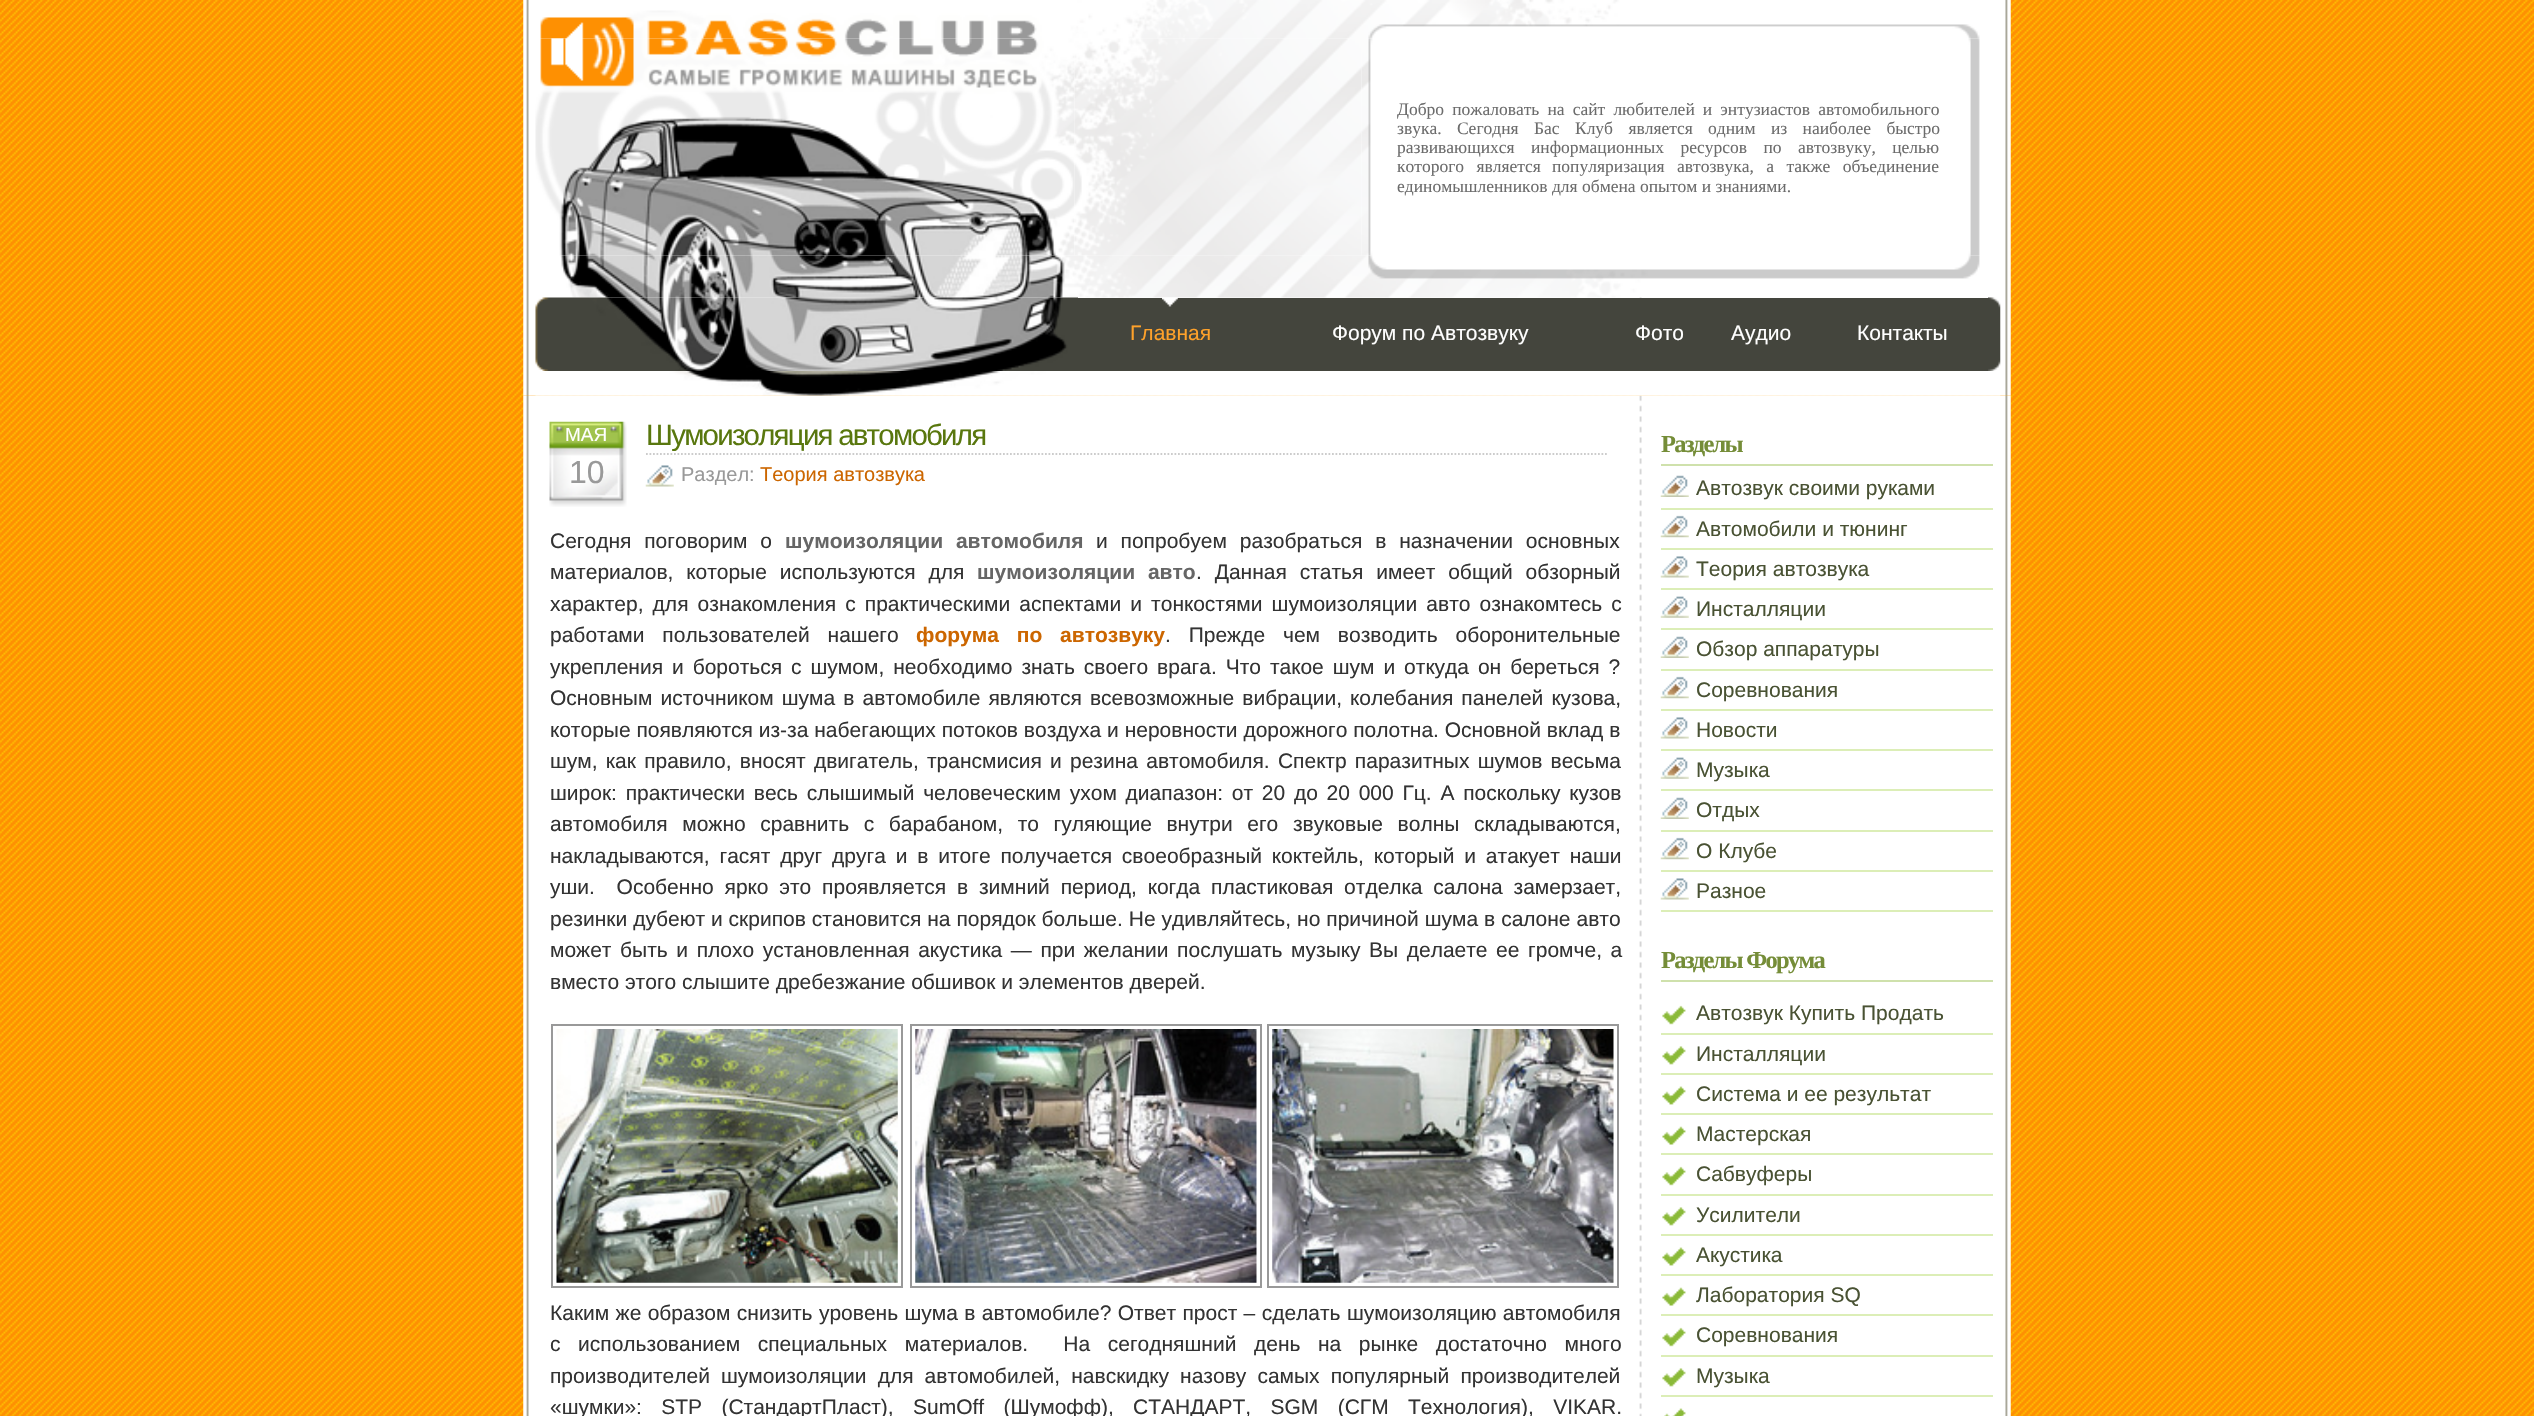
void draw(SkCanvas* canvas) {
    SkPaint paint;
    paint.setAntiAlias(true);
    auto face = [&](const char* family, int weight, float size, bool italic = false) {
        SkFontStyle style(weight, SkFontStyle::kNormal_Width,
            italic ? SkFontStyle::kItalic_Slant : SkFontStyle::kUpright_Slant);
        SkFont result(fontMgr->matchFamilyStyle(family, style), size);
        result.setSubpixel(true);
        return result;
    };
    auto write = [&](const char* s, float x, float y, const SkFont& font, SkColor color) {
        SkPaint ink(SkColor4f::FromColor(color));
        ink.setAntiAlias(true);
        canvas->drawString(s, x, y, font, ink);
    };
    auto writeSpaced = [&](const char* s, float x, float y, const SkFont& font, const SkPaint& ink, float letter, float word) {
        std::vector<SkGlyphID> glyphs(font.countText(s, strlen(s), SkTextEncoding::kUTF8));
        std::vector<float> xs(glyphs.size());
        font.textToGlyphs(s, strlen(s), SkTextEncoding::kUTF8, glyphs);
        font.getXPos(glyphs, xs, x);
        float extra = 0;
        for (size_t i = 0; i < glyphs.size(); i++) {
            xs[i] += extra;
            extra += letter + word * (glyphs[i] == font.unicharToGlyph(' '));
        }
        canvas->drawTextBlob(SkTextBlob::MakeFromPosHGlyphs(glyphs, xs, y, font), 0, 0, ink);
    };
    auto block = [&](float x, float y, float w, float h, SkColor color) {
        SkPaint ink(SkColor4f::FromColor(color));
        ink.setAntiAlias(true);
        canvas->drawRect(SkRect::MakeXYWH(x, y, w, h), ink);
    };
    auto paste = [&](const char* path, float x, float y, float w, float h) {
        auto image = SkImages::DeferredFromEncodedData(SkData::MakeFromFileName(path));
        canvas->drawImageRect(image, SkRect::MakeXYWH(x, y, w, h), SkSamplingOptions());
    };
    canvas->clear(SK_ColorWHITE);
    paste("pic1.png", 0, 0, 2534, 1416);
    paste("pic2.png", 523, 0, 1488, 396);
    paste("pic3.png", 540, 0, 1440, 39);
    paste("pic4.png", 535, 38, 540, 218);
    paste("pic5.png", 1074, 38, 288, 218);
    paste("pic6.png", 1361, 38, 12, 218);
    block(1639, 41, 3, 215, SK_ColorWHITE);
    auto kFont1 = face("Liberation Serif", 400, 17.5f);
    paint.setColor(SkColorSetRGB(108, 108, 108));
    writeSpaced("Добро пожаловать на сайт любителей и энтузиастов автомобильного", 1397, 115, kFont1, paint, 0, 3.75f);
    writeSpaced("звука. Сегодня Бас Клуб является одним из наиболее быстро", 1397, 134, kFont1, paint, 0, 11);
    writeSpaced("развивающихся информационных ресурсов по автозвуку, целью", 1397, 153, kFont1, paint, 0, 12);
    writeSpaced("которого является", 1397, 172, kFont1, paint, 0, 8);
    writeSpaced("популяризация автозвука, а также объединение", 1552, 172, kFont1, paint, 0, 8);
    write("единомышленников для обмена опытом и знаниями.", 1397, 192, kFont1, SkColorSetRGB(108, 108, 108));
    paste("pic7.png", 1968, 38, 12, 218);
    paste("pic8.png", 560, 255, 1420, 43);
    block(1078, 298, 910, 73, SkColorSetRGB(68, 69, 61));
    paste("pic9.png", 535, 297, 543, 74);
    paste("pic10.png", 1162, 297, 16, 10);
    paste("pic11.png", 1988, 297, 13, 74);
    auto kFont2 = face("Liberation Sans", 400, 21);
    write("Главная", 1130, 340, kFont2, SkColorSetRGB(254, 161, 42));
    write("Форум по Автозвуку", 1332, 340, kFont2, SK_ColorWHITE);
    write("Фото", 1635, 340, kFont2, SK_ColorWHITE);
    write("Аудио", 1731, 340, kFont2, SK_ColorWHITE);
    write("Контакты", 1857, 340, kFont2, SK_ColorWHITE);
    paste("pic13.png", 523, 395, 1488, 1021);
    paste("pic12.png", 535, 371, 1466, 25);
    paste("pic14.png", 549, 421, 78, 86);
    auto kFont3 = face("Liberation Sans", 400, 19);
    write("МАЯ", 565, 441, kFont3, SK_ColorWHITE);
    auto kFont4 = face("Liberation Sans", 400, 32);
    write("10", 569, 483, kFont4, SkColorSetRGB(153, 153, 153));
    paint.setStyle(SkPaint::kStroke_Style);
    paint.setStrokeWidth(1.8f);
    paint.setColor(SkColorSetRGB(204, 204, 204));
    paint.setPathEffect(SkDashPathEffect::Make({{1.75f, 1.75f}}, 0));
    canvas->drawPath(SkPathBuilder().moveTo(646, 454).lineTo(1608, 454).detach(), paint);
    paint.setPathEffect(nullptr);
    auto kFont5 = face("Liberation Sans", 400, 29.4f);
    paint.setStyle(SkPaint::kFill_Style);
    paint.setColor(SkColorSetRGB(89, 119, 14));
    writeSpaced("Шумоизоляция автомобиля", 646, 445, kFont5, paint, -1.75f, 0);
    paste("pic15.png", 645, 465, 29, 22);
    auto kFont6 = face("Liberation Sans", 400, 20);
    write("Раздел:", 681, 481, kFont6, SkColorSetRGB(153, 153, 153));
    write("Теория автозвука", 760, 481, kFont6, SkColorSetRGB(204, 102, 0));
    paint.setColor(SkColorSetRGB(51, 51, 51));
    writeSpaced("Сегодня поговорим о", 550, 548, kFont2, paint, 0, 7);
    auto kFont7 = face("Liberation Sans", 700, 21);
    paint.setColor(SkColorSetRGB(102, 102, 102));
    writeSpaced("шумоизоляции автомобиля", 785, 548, kFont7, paint, 0, 7);
    paint.setColor(SkColorSetRGB(51, 51, 51));
    writeSpaced("и попробуем разобраться в назначении основных", 1096, 548, kFont2, paint, 0, 7);
    writeSpaced("материалов, которые используются для", 550, 579, kFont2, paint, 0, 7);
    paint.setColor(SkColorSetRGB(102, 102, 102));
    writeSpaced("шумоизоляции авто", 977, 579, kFont7, paint, 0, 7);
    paint.setColor(SkColorSetRGB(51, 51, 51));
    writeSpaced(". Данная статья имеет общий обзорный", 1196, 579, kFont2, paint, 0, 7);
    writeSpaced("характер, для ознакомления с практическими аспектами и тонкостями шумоизоляции авто ознакомтесь с", 550, 611, kFont2, paint, 0, 3.25f);
    writeSpaced("работами пользователей нашего", 550, 642, kFont2, paint, 0, 12);
    paint.setColor(SkColorSetRGB(204, 102, 0));
    writeSpaced("форума по автозвуку", 916, 642, kFont7, paint, 0, 12);
    paint.setColor(SkColorSetRGB(51, 51, 51));
    writeSpaced(". Прежде чем возводить оборонительные", 1165, 642, kFont2, paint, 0, 12);
    writeSpaced("укрепления и бороться с шумом, необходимо знать своего врага. Что такое шум и откуда он береться ?", 550, 674, kFont2, paint, 0, 3.1f);
    writeSpaced("Основным источником шума в автомобиле являются всевозможные вибрации, колебания панелей кузова,", 550, 705, kFont2, paint, 0, 2.25f);
    write("которые появляются из-за набегающих потоков воздуха и неровности дорожного полотна. Основной вклад в", 550, 737, kFont2, SkColorSetRGB(51, 51, 51));
    writeSpaced("шум, как правило, вносят двигатель, трансмисия и резина автомобиля. Спектр паразитных шумов весьма", 550, 768, kFont2, paint, 0, 2.4f);
    writeSpaced("широк: практически весь слышимый человеческим ухом диапазон: от 20 до 20 000 Гц. А поскольку кузов", 550, 800, kFont2, paint, 0, 2.9f);
    writeSpaced("автомобиля можно сравнить с барабаном, то гуляющие внутри его звуковые волны складываются,", 550, 831, kFont2, paint, 0, 8.75f);
    writeSpaced("накладываются, гасят друг друга и в итоге получается своеобразный коктейль, который и атакует наши", 550, 863, kFont2, paint, 0, 4);
    writeSpaced("уши.  Особенно ярко это проявляется в зимний период, когда пластиковая отделка салона замерзает,", 550, 894, kFont2, paint, 0, 5);
    writeSpaced("резинки дубеют и скрипов становится на порядок больше. Не удивляйтесь, но причиной шума в салоне авто", 550, 926, kFont2, paint, 0, 0.1f);
    writeSpaced("может быть и плохо установленная акустика — при желании послушать музыку Вы делаете ее громче, а", 550, 957, kFont2, paint, 0, 2.75f);
    write("вместо этого слышите дребезжание обшивок и элементов дверей.", 550, 989, kFont2, SkColorSetRGB(51, 51, 51));
    paint.setStyle(SkPaint::kStroke_Style);
    paint.setStrokeWidth(2);
    paint.setColor(SkColorSetRGB(153, 153, 153));
    canvas->drawRect(SkRect::MakeXYWH(552, 1025, 350, 262), paint);
    canvas->drawRect(SkRect::MakeXYWH(911, 1025, 350, 262), paint);
    canvas->drawRect(SkRect::MakeXYWH(1268, 1025, 350, 262), paint);
    paste("pic16.png", 556, 1029, 342, 254);
    paste("pic17.png", 915, 1029, 342, 254);
    paste("pic18.png", 1272, 1029, 342, 254);
    paint.setStyle(SkPaint::kFill_Style);
    paint.setColor(SkColorSetRGB(51, 51, 51));
    writeSpaced("Каким же образом снизить уровень шума в автомобиле? Ответ прост – сделать шумоизоляцию автомобиля", 550, 1320, kFont2, paint, 0, 0.5f);
    writeSpaced("с использованием специальных материалов.  На сегодняшний день на рынке достаточно много", 550, 1351, kFont2, paint, 0, 11.75f);
    writeSpaced("производителей шумоизоляции для автомобилей, навскидку назову самых популярный производителей", 550, 1383, kFont2, paint, 0, 5.25f);
    writeSpaced("«шумки»: STP (СтандартПласт), SumOff (Шумофф), СТАНДАРТ, SGM (СГМ Технология), VIKAR.", 550, 1414, kFont2, paint, 0, 13.5f);
    block(1661, 464, 332, 2, SkColorSetRGB(207, 225, 172));
    auto kFont8 = face("Liberation Serif", 700, 24.5f);
    paint.setColor(SkColorSetRGB(117, 141, 56));
    writeSpaced("Разделы", 1661, 452, kFont8, paint, -1.75f, 0);
    paste("pic19.png", 1660, 475, 29, 22);
    block(1661, 508, 332, 2, SkColorSetRGB(220, 238, 183));
    write("Автозвук своими руками", 1696, 495, kFont2, SkColorSetRGB(73, 82, 51));
    paste("pic20.png", 1660, 515, 29, 23);
    block(1661, 548, 332, 2, SkColorSetRGB(220, 238, 183));
    write("Автомобили и тюнинг", 1696, 536, kFont2, SkColorSetRGB(73, 82, 51));
    paste("pic15.png", 1660, 556, 29, 22);
    block(1661, 588, 332, 2, SkColorSetRGB(220, 238, 183));
    write("Теория автозвука", 1696, 576, kFont2, SkColorSetRGB(73, 82, 51));
    paste("pic21.png", 1660, 596, 29, 22);
    block(1661, 628, 332, 2, SkColorSetRGB(220, 238, 183));
    write("Инсталляции", 1696, 616, kFont2, SkColorSetRGB(73, 82, 51));
    paste("pic19.png", 1660, 636, 29, 22);
    block(1661, 669, 332, 2, SkColorSetRGB(220, 238, 183));
    write("Обзор аппаратуры", 1696, 656, kFont2, SkColorSetRGB(73, 82, 51));
    paste("pic20.png", 1660, 676, 29, 23);
    block(1661, 709, 332, 2, SkColorSetRGB(220, 238, 183));
    write("Соревнования", 1696, 697, kFont2, SkColorSetRGB(73, 82, 51));
    paste("pic15.png", 1660, 717, 29, 22);
    block(1661, 749, 332, 2, SkColorSetRGB(220, 238, 183));
    write("Новости", 1696, 737, kFont2, SkColorSetRGB(73, 82, 51));
    paste("pic21.png", 1660, 757, 29, 22);
    block(1661, 789, 332, 2, SkColorSetRGB(220, 238, 183));
    write("Музыка", 1696, 777, kFont2, SkColorSetRGB(73, 82, 51));
    paste("pic19.png", 1660, 797, 29, 22);
    block(1661, 830, 332, 2, SkColorSetRGB(220, 238, 183));
    write("Отдых", 1696, 817, kFont2, SkColorSetRGB(73, 82, 51));
    paste("pic20.png", 1660, 837, 29, 23);
    block(1661, 870, 332, 2, SkColorSetRGB(220, 238, 183));
    write("О Клубе", 1696, 858, kFont2, SkColorSetRGB(73, 82, 51));
    paste("pic15.png", 1660, 878, 29, 22);
    block(1661, 910, 332, 2, SkColorSetRGB(220, 238, 183));
    write("Разное", 1696, 898, kFont2, SkColorSetRGB(73, 82, 51));
    block(1661, 980, 332, 2, SkColorSetRGB(207, 225, 172));
    writeSpaced("Разделы Форума", 1661, 968, kFont8, paint, -1.75f, 0);
    paste("pic22.png", 1662, 1005, 24, 20);
    block(1661, 1033, 332, 2, SkColorSetRGB(220, 238, 183));
    write("Автозвук Купить Продать", 1696, 1020, kFont2, SkColorSetRGB(73, 82, 51));
    paste("pic23.png", 1662, 1046, 24, 19);
    block(1661, 1073, 332, 2, SkColorSetRGB(220, 238, 183));
    write("Инсталляции", 1696, 1061, kFont2, SkColorSetRGB(73, 82, 51));
    paste("pic24.png", 1662, 1086, 24, 19);
    block(1661, 1113, 332, 2, SkColorSetRGB(220, 238, 183));
    write("Система и ее результат", 1696, 1101, kFont2, SkColorSetRGB(73, 82, 51));
    paste("pic25.png", 1662, 1126, 24, 19);
    block(1661, 1153, 332, 2, SkColorSetRGB(220, 238, 183));
    write("Мастерская", 1696, 1141, kFont2, SkColorSetRGB(73, 82, 51));
    paste("pic22.png", 1662, 1166, 24, 20);
    block(1661, 1194, 332, 2, SkColorSetRGB(220, 238, 183));
    write("Сабвуферы", 1696, 1181, kFont2, SkColorSetRGB(73, 82, 51));
    paste("pic23.png", 1662, 1207, 24, 19);
    block(1661, 1234, 332, 2, SkColorSetRGB(220, 238, 183));
    write("Усилители", 1696, 1222, kFont2, SkColorSetRGB(73, 82, 51));
    paste("pic24.png", 1662, 1247, 24, 19);
    block(1661, 1274, 332, 2, SkColorSetRGB(220, 238, 183));
    write("Акустика", 1696, 1262, kFont2, SkColorSetRGB(73, 82, 51));
    paste("pic25.png", 1662, 1287, 24, 19);
    block(1661, 1314, 332, 2, SkColorSetRGB(220, 238, 183));
    write("Лаборатория SQ", 1696, 1302, kFont2, SkColorSetRGB(73, 82, 51));
    paste("pic22.png", 1662, 1327, 24, 20);
    block(1661, 1355, 332, 2, SkColorSetRGB(220, 238, 183));
    write("Соревнования", 1696, 1342, kFont2, SkColorSetRGB(73, 82, 51));
    paste("pic23.png", 1662, 1368, 24, 19);
    block(1661, 1395, 332, 2, SkColorSetRGB(220, 238, 183));
    write("Музыка", 1696, 1383, kFont2, SkColorSetRGB(73, 82, 51));
    paste("pic26.png", 1664, 1408, 22, 8);
}
